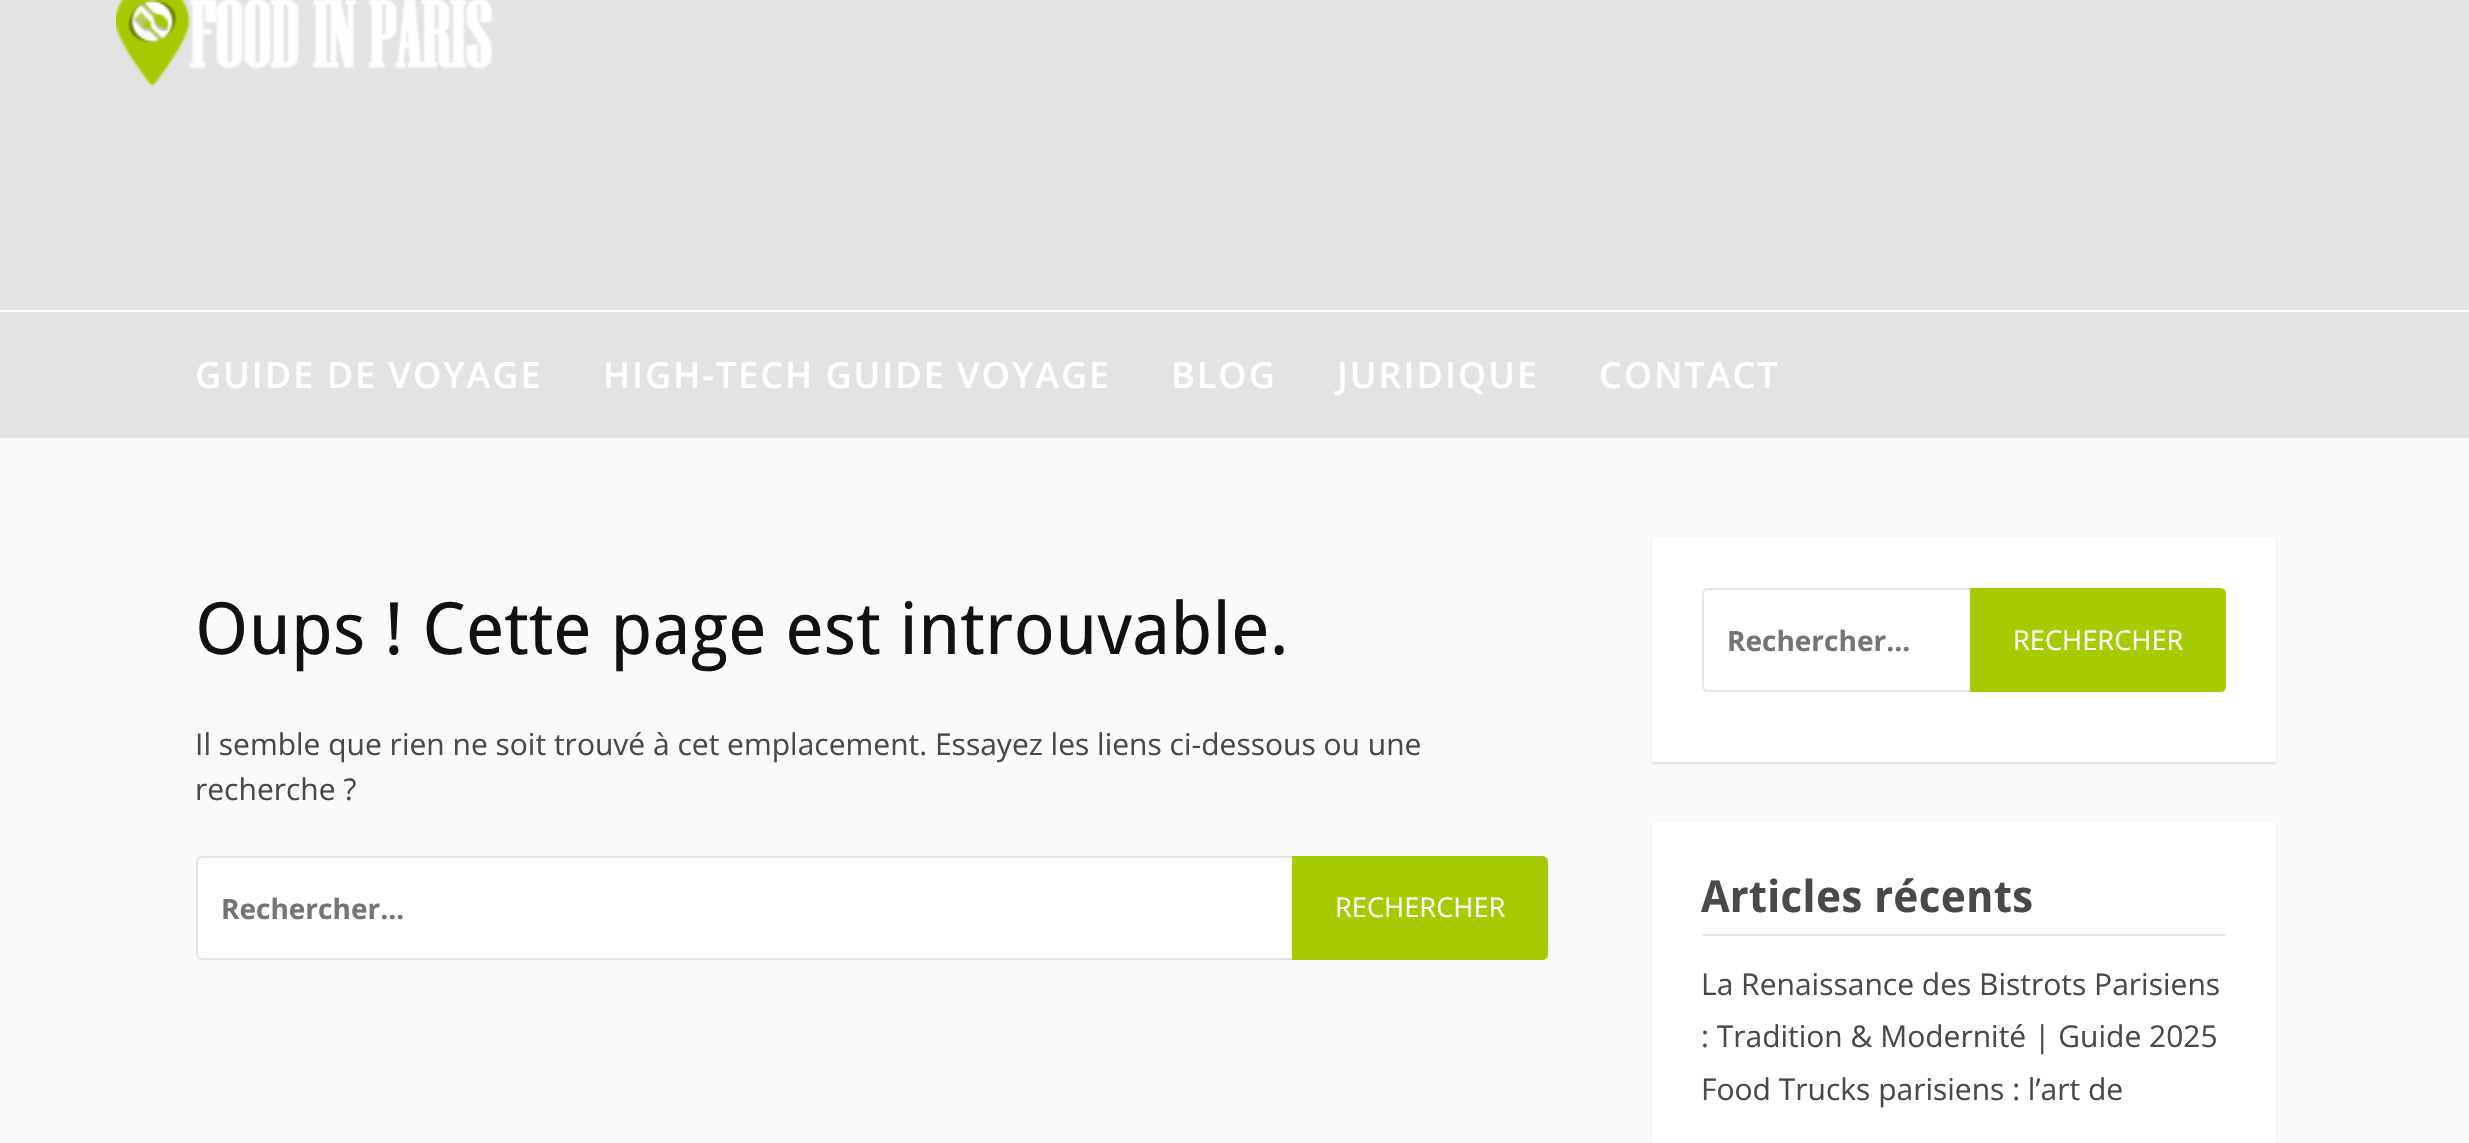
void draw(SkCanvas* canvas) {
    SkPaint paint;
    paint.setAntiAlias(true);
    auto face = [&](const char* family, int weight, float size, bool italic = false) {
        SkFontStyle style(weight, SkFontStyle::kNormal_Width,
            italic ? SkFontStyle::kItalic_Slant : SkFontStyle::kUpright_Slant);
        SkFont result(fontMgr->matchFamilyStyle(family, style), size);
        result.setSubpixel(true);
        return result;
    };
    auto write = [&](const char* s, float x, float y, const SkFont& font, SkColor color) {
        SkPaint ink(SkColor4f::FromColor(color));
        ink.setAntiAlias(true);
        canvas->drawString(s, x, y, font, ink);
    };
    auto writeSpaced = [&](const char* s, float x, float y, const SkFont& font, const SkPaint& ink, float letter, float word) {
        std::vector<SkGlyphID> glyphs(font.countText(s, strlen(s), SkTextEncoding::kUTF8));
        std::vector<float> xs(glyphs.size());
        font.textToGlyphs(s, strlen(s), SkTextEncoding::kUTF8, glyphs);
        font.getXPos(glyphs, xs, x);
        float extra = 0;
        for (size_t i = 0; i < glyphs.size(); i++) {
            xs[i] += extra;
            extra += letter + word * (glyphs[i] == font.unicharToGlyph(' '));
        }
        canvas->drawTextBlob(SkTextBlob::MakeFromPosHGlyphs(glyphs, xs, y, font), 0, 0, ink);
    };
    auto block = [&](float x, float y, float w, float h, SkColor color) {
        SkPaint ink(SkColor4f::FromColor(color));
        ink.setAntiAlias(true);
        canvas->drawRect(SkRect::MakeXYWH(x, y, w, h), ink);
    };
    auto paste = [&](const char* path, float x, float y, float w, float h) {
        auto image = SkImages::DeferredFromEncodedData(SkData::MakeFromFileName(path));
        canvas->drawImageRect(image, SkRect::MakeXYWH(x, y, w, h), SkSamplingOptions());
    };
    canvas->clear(SkColorSetRGB(250, 250, 250));
    block(0, 0, 2469, 438, SkColorSetRGB(227, 227, 227));
    paste("pic1.png", 116, 0, 377, 87);
    block(0, 310, 2469, 2, SK_ColorWHITE);
    auto kFont1 = face("Open Sans", 600, 36);
    paint.setColor(SK_ColorWHITE);
    writeSpaced("GUIDE DE VOYAGE", 195, 388, kFont1, paint, 2, 0);
    writeSpaced("HIGH-TECH GUIDE VOYAGE", 603, 388, kFont1, paint, 2, 0);
    writeSpaced("BLOG", 1171, 388, kFont1, paint, 2, 0);
    writeSpaced("JURIDIQUE", 1337, 388, kFont1, paint, 2, 0);
    writeSpaced("CONTACT", 1599, 388, kFont1, paint, 2, 0);
    auto kFont2 = face("Droid Sans", 400, 72);
    write("Oups ! Cette page est introuvable.", 195, 654, kFont2, SkColorSetRGB(17, 17, 17));
    auto kFont3 = face("Open Sans", 400, 30);
    write("Il semble que rien ne soit trouvé à cet emplacement. Essayez les liens ci-dessous ou une", 195, 755, kFont3, SkColorSetRGB(73, 73, 73));
    write("recherche ?", 195, 800, kFont3, SkColorSetRGB(73, 73, 73));
    canvas->drawRoundRect(SkRect::MakeXYWH(197, 857, 1350, 102), 5, 5, paint);
    paint.setStyle(SkPaint::kStroke_Style);
    paint.setStrokeWidth(2);
    paint.setColor(SkColorSetRGB(227, 227, 227));
    canvas->drawRoundRect(SkRect::MakeXYWH(197, 857, 1350, 102), 5, 5, paint);
    auto kFont4 = face("Open Sans", 700, 28);
    write("Rechercher…", 221, 919, kFont4, SkColorSetRGB(117, 117, 117));
    paint.setStyle(SkPaint::kFill_Style);
    paint.setColor(SkColorSetRGB(164, 204, 0));
    canvas->drawPath(SkPathBuilder().moveTo(1293, 857).lineTo(1542, 857).cubicTo(1545, 857, 1547, 859, 1547, 862).lineTo(1547, 954).cubicTo(1547, 957, 1545, 959, 1542, 959).lineTo(1293, 959).close().detach(), paint);
    paint.setStyle(SkPaint::kStroke_Style);
    canvas->drawPath(SkPathBuilder().moveTo(1293, 857).lineTo(1542, 857).cubicTo(1545, 857, 1547, 859, 1547, 862).lineTo(1547, 954).cubicTo(1547, 957, 1545, 959, 1542, 959).lineTo(1293, 959).close().detach(), paint);
    auto kFont5 = face("Open Sans", 400, 27.25f);
    write("RECHERCHER", 1335, 917, kFont5, SK_ColorWHITE);
    paint.setStyle(SkPaint::kFill_Style);
    paint.setColor(SkColorSetARGB(26, 0, 0, 0));
    paint.setMaskFilter(SkMaskFilter::MakeBlur(kNormal_SkBlurStyle, 1));
    canvas->drawRect(SkRect::MakeXYWH(1652, 540, 624, 224), paint);
    paint.setMaskFilter(nullptr);
    block(1652, 538, 624, 224, SK_ColorWHITE);
    paint.setStyle(SkPaint::kStroke_Style);
    paint.setColor(SkColorSetRGB(227, 227, 227));
    canvas->drawRoundRect(SkRect::MakeXYWH(1703, 589, 522, 102), 5, 5, paint);
    write("Rechercher…", 1727, 651, kFont4, SkColorSetRGB(117, 117, 117));
    paint.setStyle(SkPaint::kFill_Style);
    paint.setColor(SkColorSetRGB(164, 204, 0));
    canvas->drawPath(SkPathBuilder().moveTo(1971, 589).lineTo(2220, 589).cubicTo(2223, 589, 2225, 591, 2225, 594).lineTo(2225, 686).cubicTo(2225, 689, 2223, 691, 2220, 691).lineTo(1971, 691).close().detach(), paint);
    paint.setStyle(SkPaint::kStroke_Style);
    canvas->drawPath(SkPathBuilder().moveTo(1971, 589).lineTo(2220, 589).cubicTo(2223, 589, 2225, 591, 2225, 594).lineTo(2225, 686).cubicTo(2225, 689, 2223, 691, 2220, 691).lineTo(1971, 691).close().detach(), paint);
    write("RECHERCHER", 2013, 650, kFont5, SK_ColorWHITE);
    paint.setStyle(SkPaint::kFill_Style);
    paint.setColor(SkColorSetARGB(26, 0, 0, 0));
    paint.setMaskFilter(SkMaskFilter::MakeBlur(kNormal_SkBlurStyle, 1));
    canvas->drawRect(SkRect::MakeXYWH(1652, 824, 624, 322), paint);
    paint.setMaskFilter(nullptr);
    block(1652, 822, 624, 321, SK_ColorWHITE);
    block(1702, 934, 524, 2, SkColorSetRGB(230, 230, 230));
    auto kFont6 = face("Droid Sans", 700, 44);
    write("Articles récents", 1701, 912, kFont6, SkColorSetRGB(73, 73, 73));
    write("La Renaissance des Bistrots Parisiens", 1701, 995, kFont3, SkColorSetRGB(73, 73, 73));
    write(": Tradition & Modernité | Guide 2025", 1701, 1047, kFont3, SkColorSetRGB(73, 73, 73));
    write("Food Trucks parisiens : l’art de", 1701, 1100, kFont3, SkColorSetRGB(73, 73, 73));
}
